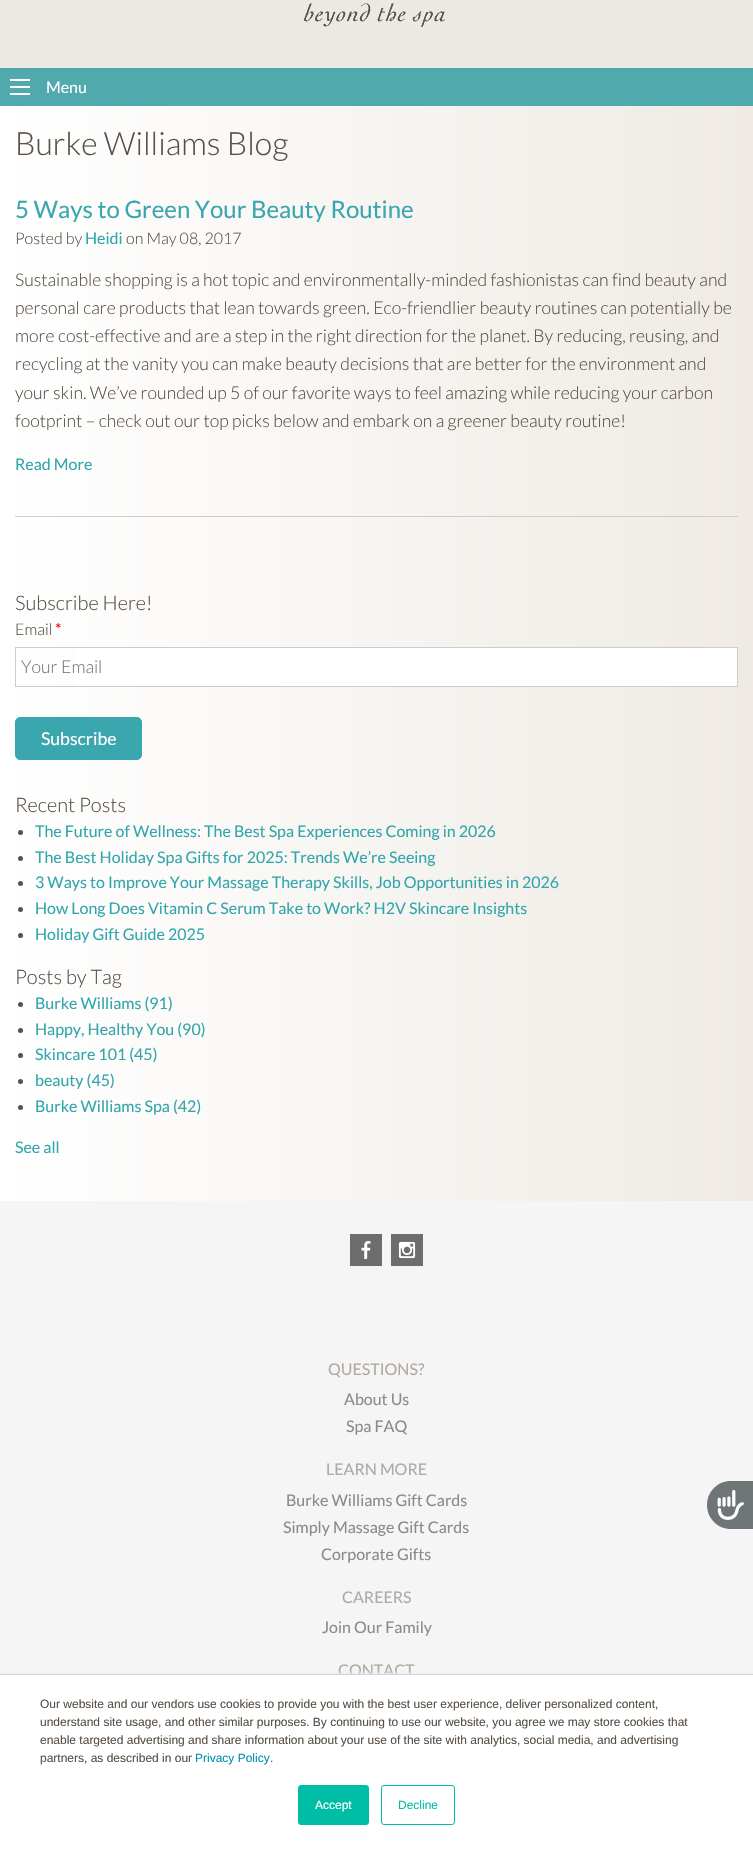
void draw(SkCanvas* canvas) {
    SkPaint paint;
    paint.setAntiAlias(true);
    auto face = [&](const char* family, int weight, float size, bool italic = false) {
        SkFontStyle style(weight, SkFontStyle::kNormal_Width,
            italic ? SkFontStyle::kItalic_Slant : SkFontStyle::kUpright_Slant);
        SkFont result(fontMgr->matchFamilyStyle(family, style), size);
        result.setSubpixel(true);
        return result;
    };
    auto write = [&](const char* s, float x, float y, const SkFont& font, SkColor color) {
        SkPaint ink(SkColor4f::FromColor(color));
        ink.setAntiAlias(true);
        canvas->drawString(s, x, y, font, ink);
    };
    auto block = [&](float x, float y, float w, float h, SkColor color) {
        SkPaint ink(SkColor4f::FromColor(color));
        ink.setAntiAlias(true);
        canvas->drawRect(SkRect::MakeXYWH(x, y, w, h), ink);
    };
    auto paste = [&](const char* path, float x, float y, float w, float h) {
        auto image = SkImages::DeferredFromEncodedData(SkData::MakeFromFileName(path));
        canvas->drawImageRect(image, SkRect::MakeXYWH(x, y, w, h), SkSamplingOptions());
    };
    canvas->clear(SkColorSetRGB(236, 233, 229));
    paste("pic1.png", 303, 3, 143, 24);
    block(0, 68, 753, 38, SkColorSetRGB(79, 169, 173));
    block(10, 93, 20, 2, SK_ColorWHITE);
    block(10, 86, 20, 2, SK_ColorWHITE);
    block(10, 79, 20, 2, SK_ColorWHITE);
    auto kFont1 = face("Lato", 400, 16);
    write("Menu", 46, 93, kFont1, SK_ColorWHITE);
    {
        const SkColor colors[] = {SK_ColorWHITE, SkColorSetRGB(252, 251, 250), SkColorSetRGB(248, 247, 244), SkColorSetRGB(239, 234, 228)};
        const float stops[] = {0, 0.2f, 0.4f, 1};
        const SkPoint ends[] = {{0, 654}, {753, 654}};
        paint.setShader(SkGradientShader::MakeLinear(ends, colors, stops, 4, SkTileMode::kClamp));
        paint.setAlpha(255);
    }
    canvas->drawRect(SkRect::MakeXYWH(0, 106, 753, 1095), paint);
    auto kFont2 = face("Lato", 300, 32);
    write("Burke Williams Blog", 15, 155, kFont2, SkColorSetRGB(88, 79, 70));
    auto kFont3 = face("Lato", 400, 24);
    write("5 Ways to Green Your Beauty Routine", 15, 218, kFont3, SkColorSetRGB(58, 166, 173));
    auto kFont4 = face("Lato", 300, 16);
    write("Posted by", 15, 244, kFont4, SkColorSetRGB(88, 79, 70));
    write("Heidi", 85, 244, kFont1, SkColorSetRGB(50, 166, 171));
    write("on May 08, 2017", 126, 244, kFont4, SkColorSetRGB(88, 79, 70));
    auto kFont5 = face("Lato", 300, 17.6f);
    write("Sustainable shopping is a hot topic and environmentally-minded fashionistas can find beauty and", 15, 286, kFont5, SkColorSetRGB(88, 79, 70));
    write("personal care products that lean towards green. Eco-friendlier beauty routines can potentially be", 15, 314, kFont5, SkColorSetRGB(88, 79, 70));
    write("more cost-effective and are a step in the right direction for the planet. By reducing, reusing, and", 15, 342, kFont5, SkColorSetRGB(88, 79, 70));
    write("recycling at the vanity you can make beauty decisions that are better for the environment and", 15, 370, kFont5, SkColorSetRGB(88, 79, 70));
    write("your skin. We’ve rounded up 5 of our favorite ways to feel amazing while reducing your carbon", 15, 399, kFont5, SkColorSetRGB(88, 79, 70));
    write("footprint – check out our top picks below and embark on a greener beauty routine!", 15, 427, kFont5, SkColorSetRGB(88, 79, 70));
    write("Read More", 15, 470, kFont1, SkColorSetRGB(50, 166, 171));
    block(15, 516, 723, 1, SkColorSetRGB(204, 204, 204));
    auto kFont6 = face("Lato", 300, 20);
    write("Subscribe Here!", 15, 610, kFont6, SkColorSetRGB(88, 79, 70));
    write("Email", 15, 635, kFont4, SkColorSetRGB(88, 79, 70));
    write("*", 55, 635, kFont1, SkColorSetRGB(255, 0, 0));
    block(75, 648, 662, 38, SK_ColorWHITE);
    paint.setStyle(SkPaint::kStroke_Style);
    paint.setStrokeWidth(1);
    paint.setShader(nullptr);
    paint.setColor(SkColorSetRGB(204, 204, 204));
    canvas->drawRect(SkRect::MakeXYWH(15.5f, 647.5f, 722, 39), paint);
    write("Your Email", 21, 673, kFont5, SkColorSetRGB(117, 117, 117));
    paint.setStyle(SkPaint::kFill_Style);
    paint.setColor(SkColorSetRGB(58, 166, 173));
    canvas->drawRoundRect(SkRect::MakeXYWH(15.5f, 717.5f, 126, 42), 4.5f, 4.5f, paint);
    paint.setStyle(SkPaint::kStroke_Style);
    canvas->drawRoundRect(SkRect::MakeXYWH(15.5f, 717.5f, 126, 42), 4.5f, 4.5f, paint);
    auto kFont7 = face("Lato", 400, 17.6f);
    write("Subscribe", 41, 745, kFont7, SK_ColorWHITE);
    write("Recent Posts", 15, 812, kFont6, SkColorSetRGB(88, 79, 70));
    paint.setStyle(SkPaint::kFill_Style);
    paint.setColor(SkColorSetRGB(88, 79, 70));
    canvas->drawCircle(20.5f, 832.5f, 2.5f, paint);
    write("The Future of Wellness: The Best Spa Experiences Coming in 2026", 35, 837, kFont1, SkColorSetRGB(50, 166, 171));
    canvas->drawCircle(20.5f, 858.5f, 2.5f, paint);
    write("The Best Holiday Spa Gifts for 2025: Trends We’re Seeing", 35, 863, kFont1, SkColorSetRGB(50, 166, 171));
    canvas->drawCircle(20.5f, 883.5f, 2.5f, paint);
    write("3 Ways to Improve Your Massage Therapy Skills, Job Opportunities in 2026", 35, 888, kFont1, SkColorSetRGB(50, 166, 171));
    canvas->drawCircle(20.5f, 909.5f, 2.5f, paint);
    write("How Long Does Vitamin C Serum Take to Work? H2V Skincare Insights", 35, 914, kFont1, SkColorSetRGB(50, 166, 171));
    canvas->drawCircle(20.5f, 935.5f, 2.5f, paint);
    write("Holiday Gift Guide 2025", 35, 940, kFont1, SkColorSetRGB(50, 166, 171));
    write("Posts by Tag", 15, 984, kFont6, SkColorSetRGB(88, 79, 70));
    canvas->drawCircle(20.5f, 1004.5f, 2.5f, paint);
    write("Burke Williams (91)", 35, 1009, kFont1, SkColorSetRGB(50, 166, 171));
    canvas->drawCircle(20.5f, 1030.5f, 2.5f, paint);
    write("Happy, Healthy You (90)", 35, 1035, kFont1, SkColorSetRGB(50, 166, 171));
    canvas->drawCircle(20.5f, 1055.5f, 2.5f, paint);
    write("Skincare 101 (45)", 35, 1060, kFont1, SkColorSetRGB(50, 166, 171));
    canvas->drawCircle(20.5f, 1081.5f, 2.5f, paint);
    write("beauty (45)", 35, 1086, kFont1, SkColorSetRGB(50, 166, 171));
    canvas->drawCircle(20.5f, 1107.5f, 2.5f, paint);
    write("Burke Williams Spa (42)", 35, 1112, kFont1, SkColorSetRGB(50, 166, 171));
    write("See all", 15, 1153, kFont1, SkColorSetRGB(50, 166, 171));
    block(0, 1201, 753, 473, SkColorSetRGB(245, 245, 245));
    paste("pic2.png", 350, 1234, 32, 32);
    paste("pic3.png", 391, 1234, 32, 32);
    write("QUESTIONS?", 328, 1375, kFont1, SkColorSetRGB(176, 169, 163));
    write("About Us", 344, 1405, kFont1, SkColorSetRGB(138, 138, 138));
    write("Spa FAQ", 346, 1432, kFont1, SkColorSetRGB(138, 138, 138));
    write("LEARN MORE", 326, 1475, kFont1, SkColorSetRGB(176, 169, 163));
    write("Burke Williams Gift Cards", 286, 1506, kFont1, SkColorSetRGB(138, 138, 138));
    write("Simply Massage Gift Cards", 283, 1533, kFont1, SkColorSetRGB(138, 138, 138));
    write("Corporate Gifts", 321, 1560, kFont1, SkColorSetRGB(138, 138, 138));
    write("CAREERS", 342, 1603, kFont1, SkColorSetRGB(176, 169, 163));
    write("Join Our Family", 322, 1633, kFont1, SkColorSetRGB(138, 138, 138));
    write("CONTACT", 338, 1676, kFont1, SkColorSetRGB(176, 169, 163));
    paint.setColor(SkColorSetRGB(110, 117, 119));
    canvas->drawPath(SkPathBuilder().moveTo(731, 1481).lineTo(753, 1481).lineTo(753, 1529).lineTo(731, 1529).cubicTo(717.5f, 1529, 707, 1518.5f, 707, 1505).cubicTo(707, 1491.5f, 717.5f, 1481, 731, 1481).close().detach(), paint);
    paste("pic4.png", 717, 1490, 27, 30);
    paint.setColor(SkColorSetRGB(234, 240, 246));
    paint.setMaskFilter(SkMaskFilter::MakeBlur(kNormal_SkBlurStyle, 1.5f));
    canvas->drawRect(SkRect::MakeXYWH(0, 1673, 753, 177), paint);
    paint.setMaskFilter(nullptr);
    block(0, 1675, 753, 176, SK_ColorWHITE);
    block(0, 1674, 753, 1, SkColorSetRGB(203, 214, 226));
    auto kFont8 = face("Liberation Sans", 400, 12);
    write("Our website and our vendors use cookies to provide you with the best user experience, deliver personalized content,", 40, 1708, kFont8, SkColorSetRGB(88, 79, 70));
    write("understand site usage, and other similar purposes. By continuing to use our website, you agree we may store cookies that", 40, 1726, kFont8, SkColorSetRGB(88, 79, 70));
    write("enable targeted advertising and share information about your use of the site with analytics, social media, and advertising", 40, 1744, kFont8, SkColorSetRGB(88, 79, 70));
    write("partners, as described in our", 40, 1762, kFont8, SkColorSetRGB(88, 79, 70));
    write("Privacy Policy", 195, 1762, kFont8, SkColorSetRGB(0, 145, 174));
    write(".", 270, 1762, kFont8, SkColorSetRGB(88, 79, 70));
    paint.setColor(SkColorSetRGB(0, 189, 165));
    canvas->drawRoundRect(SkRect::MakeXYWH(298.5f, 1785.5f, 70, 39), 2.5f, 2.5f, paint);
    paint.setStyle(SkPaint::kStroke_Style);
    canvas->drawRoundRect(SkRect::MakeXYWH(298.5f, 1785.5f, 70, 39), 2.5f, 2.5f, paint);
    write("Accept", 315, 1809, kFont8, SK_ColorWHITE);
    canvas->drawRoundRect(SkRect::MakeXYWH(381.5f, 1785.5f, 73, 39), 2.5f, 2.5f, paint);
    write("Decline", 398, 1809, kFont8, SkColorSetRGB(0, 189, 165));
}
